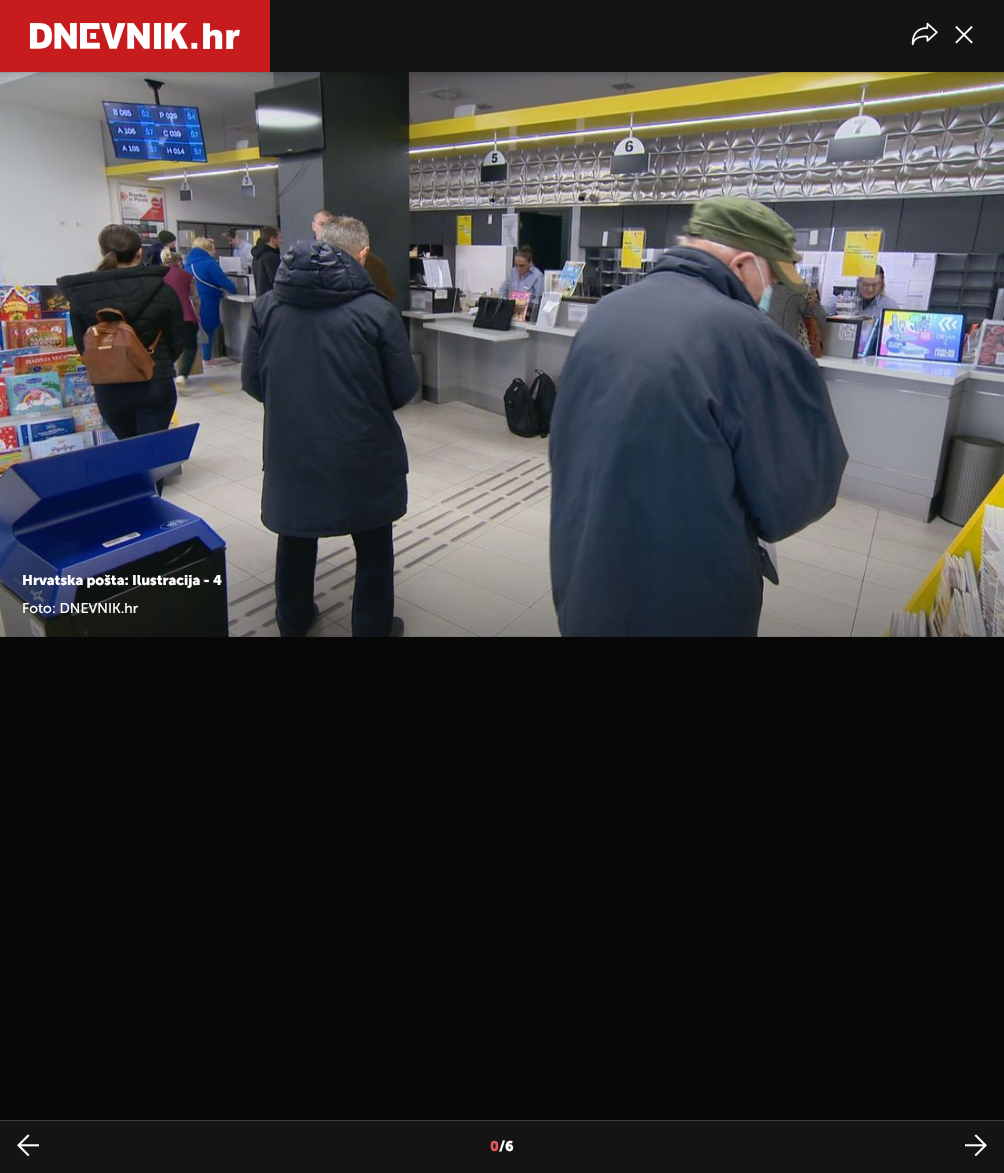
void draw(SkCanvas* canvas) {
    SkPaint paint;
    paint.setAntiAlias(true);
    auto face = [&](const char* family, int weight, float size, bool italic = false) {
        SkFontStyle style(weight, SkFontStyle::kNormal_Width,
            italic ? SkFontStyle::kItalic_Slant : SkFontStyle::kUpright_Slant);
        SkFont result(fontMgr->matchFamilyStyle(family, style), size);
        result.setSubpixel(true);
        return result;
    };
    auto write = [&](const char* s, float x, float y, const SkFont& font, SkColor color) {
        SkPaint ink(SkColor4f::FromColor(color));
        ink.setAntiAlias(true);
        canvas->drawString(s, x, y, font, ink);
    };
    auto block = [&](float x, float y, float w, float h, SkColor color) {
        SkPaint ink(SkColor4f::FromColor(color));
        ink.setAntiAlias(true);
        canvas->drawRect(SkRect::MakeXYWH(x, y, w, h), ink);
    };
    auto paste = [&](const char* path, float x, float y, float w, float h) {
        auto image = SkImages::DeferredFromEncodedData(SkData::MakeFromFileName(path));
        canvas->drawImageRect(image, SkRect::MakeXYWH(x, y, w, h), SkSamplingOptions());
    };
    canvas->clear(SkColorSetRGB(7, 7, 7));
    paste("pic4.png", 0, 72, 1004, 565);
    paint.setColor(SkColorSetARGB(26, 0, 0, 0));
    paint.setMaskFilter(SkMaskFilter::MakeBlur(kNormal_SkBlurStyle, 2));
    canvas->drawRect(SkRect::MakeXYWH(0, 4, 1004, 72), paint);
    paint.setMaskFilter(nullptr);
    block(270, 0, 734, 72, SkColorSetRGB(20, 20, 20));
    block(0, 0, 270, 72, SkColorSetRGB(199, 28, 29));
    paste("pic1.png", 30, 23, 210, 26);
    paste("pic2.png", 911, 22, 27, 24);
    paste("pic3.png", 955, 26, 18, 18);
    auto kFont1 = face("Museo Sans", 400, 14);
    write("Hrvatska pošta: Ilustracija - 4", 22, 585, kFont1, SK_ColorWHITE);
    auto kFont2 = face("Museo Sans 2", 400, 14);
    write("Foto: DNEVNIK.hr", 22, 613, kFont2, SK_ColorWHITE);
    block(0, 1121, 1004, 52, SkColorSetRGB(20, 20, 20));
    block(0, 1120, 1004, 1, SkColorSetRGB(61, 61, 61));
    paste("pic5.png", 17, 1134, 22, 23);
    write("0", 490, 1151, kFont1, SkColorSetRGB(233, 88, 88));
    write("/6", 499, 1151, kFont1, SK_ColorWHITE);
    paste("pic6.png", 965, 1134, 22, 23);
}
